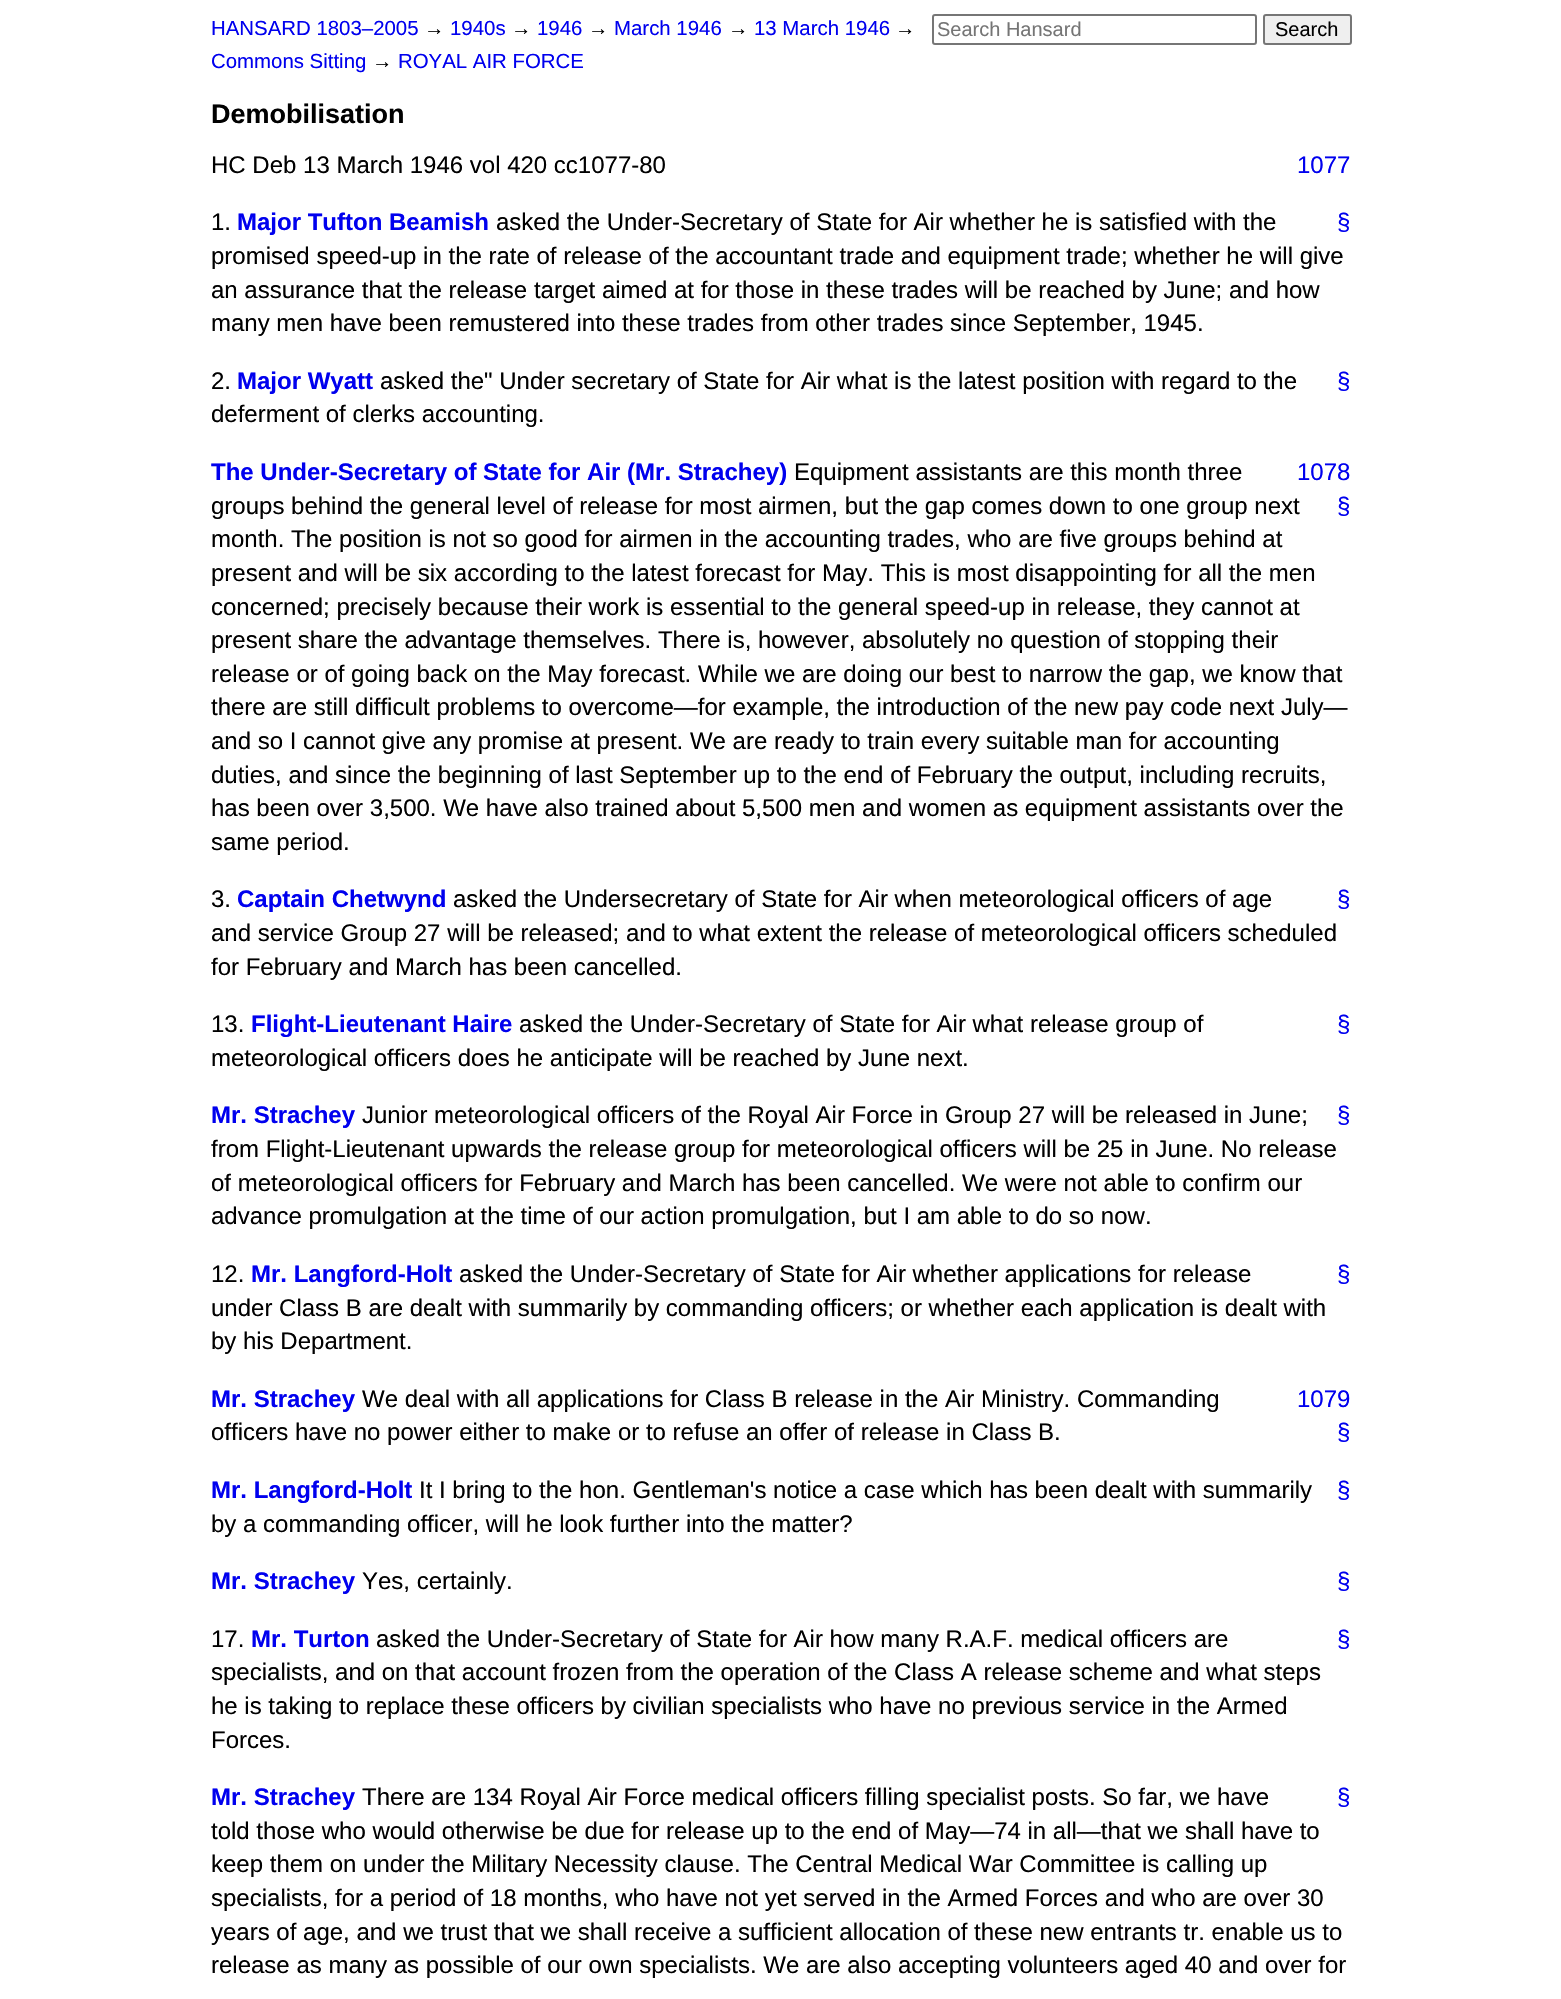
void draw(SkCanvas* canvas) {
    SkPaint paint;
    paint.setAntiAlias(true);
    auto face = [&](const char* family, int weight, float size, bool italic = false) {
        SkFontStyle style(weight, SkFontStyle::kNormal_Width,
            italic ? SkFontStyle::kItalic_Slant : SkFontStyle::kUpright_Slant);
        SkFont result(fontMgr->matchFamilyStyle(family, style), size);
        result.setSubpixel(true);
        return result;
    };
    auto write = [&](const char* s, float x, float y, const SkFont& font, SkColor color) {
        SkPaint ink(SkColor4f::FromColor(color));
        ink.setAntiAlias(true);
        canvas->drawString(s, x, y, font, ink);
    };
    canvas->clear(SK_ColorWHITE);
    auto kFont1 = face("Liberation Sans", 400, 20.4f);
    write("HANSARD 1803–2005", 211, 35, kFont1, SkColorSetRGB(0, 0, 238));
    write("→", 424, 35, kFont1, SK_ColorBLACK);
    write("1940s", 450, 35, kFont1, SkColorSetRGB(0, 0, 238));
    write("→", 511, 35, kFont1, SK_ColorBLACK);
    write("1946", 537, 35, kFont1, SkColorSetRGB(0, 0, 238));
    write("→", 588, 35, kFont1, SK_ColorBLACK);
    write("March 1946", 614, 35, kFont1, SkColorSetRGB(0, 0, 238));
    write("→", 728, 35, kFont1, SK_ColorBLACK);
    write("13 March 1946", 754, 35, kFont1, SkColorSetRGB(0, 0, 238));
    write("→", 895, 35, kFont1, SK_ColorBLACK);
    write("Commons Sitting", 211, 68, kFont1, SkColorSetRGB(0, 0, 238));
    write("→", 372, 68, kFont1, SK_ColorBLACK);
    write("ROYAL AIR FORCE", 398, 68, kFont1, SkColorSetRGB(0, 0, 238));
    paint.setStyle(SkPaint::kStroke_Style);
    paint.setStrokeWidth(2);
    paint.setColor(SkColorSetRGB(118, 118, 118));
    canvas->drawRoundRect(SkRect::MakeXYWH(933, 15, 323, 29), 2, 2, paint);
    auto kFont2 = face("Liberation Sans", 400, 20);
    write("Search Hansard", 937, 36, kFont2, SkColorSetRGB(117, 117, 117));
    paint.setStyle(SkPaint::kFill_Style);
    paint.setColor(SkColorSetRGB(239, 239, 239));
    canvas->drawRoundRect(SkRect::MakeXYWH(1264, 15, 87, 29), 2, 2, paint);
    paint.setStyle(SkPaint::kStroke_Style);
    paint.setColor(SkColorSetRGB(118, 118, 118));
    canvas->drawRoundRect(SkRect::MakeXYWH(1264, 15, 87, 29), 2, 2, paint);
    write("Search", 1275, 36, kFont2, SK_ColorBLACK);
    auto kFont3 = face("Liberation Sans", 700, 27);
    write("Demobilisation", 211, 123, kFont3, SK_ColorBLACK);
    auto kFont4 = face("Liberation Sans", 400, 24);
    write("HC Deb 13 March 1946 vol 420 cc1077-80", 211, 173, kFont4, SK_ColorBLACK);
    write("1077", 1297, 173, kFont4, SkColorSetRGB(0, 0, 238));
    write("1.", 211, 230, kFont4, SK_ColorBLACK);
    auto kFont5 = face("Liberation Sans", 700, 24);
    write("Major Tufton Beamish", 237, 230, kFont5, SkColorSetRGB(0, 0, 238));
    write("asked the Under-Secretary of State for Air whether he is satisfied with the", 496, 230, kFont4, SK_ColorBLACK);
    write("§", 1337, 230, kFont4, SkColorSetRGB(0, 0, 238));
    write("promised speed-up in the rate of release of the accountant trade and equipment trade; whether he will give", 211, 264, kFont4, SK_ColorBLACK);
    write("an assurance that the release target aimed at for those in these trades will be reached by June; and how", 211, 298, kFont4, SK_ColorBLACK);
    write("many men have been remustered into these trades from other trades since September, 1945.", 211, 331, kFont4, SK_ColorBLACK);
    write("2.", 211, 389, kFont4, SK_ColorBLACK);
    write("Major Wyatt", 237, 389, kFont5, SkColorSetRGB(0, 0, 238));
    write("asked the\" Under secretary of State for Air what is the latest position with regard to the", 380, 389, kFont4, SK_ColorBLACK);
    write("§", 1337, 389, kFont4, SkColorSetRGB(0, 0, 238));
    write("deferment of clerks accounting.", 211, 422, kFont4, SK_ColorBLACK);
    write("The Under-Secretary of State for Air (Mr. Strachey)", 211, 480, kFont5, SkColorSetRGB(0, 0, 238));
    write("Equipment assistants are this month three", 794, 480, kFont4, SK_ColorBLACK);
    write("groups behind the general level of release for most airmen, but the gap comes down to one group next", 211, 514, kFont4, SK_ColorBLACK);
    write("§", 1337, 514, kFont4, SkColorSetRGB(0, 0, 238));
    write("month. The position is not so good for airmen in the accounting trades, who are five groups behind at", 211, 547, kFont4, SK_ColorBLACK);
    write("present and will be six according to the latest forecast for May. This is most disappointing for all the men", 211, 581, kFont4, SK_ColorBLACK);
    write("concerned; precisely because their work is essential to the general speed-up in release, they cannot at", 211, 615, kFont4, SK_ColorBLACK);
    write("present share the advantage themselves. There is, however, absolutely no question of stopping their", 211, 648, kFont4, SK_ColorBLACK);
    write("release or of going back on the May forecast. While we are doing our best to narrow the gap, we know that", 211, 682, kFont4, SK_ColorBLACK);
    write("there are still difficult problems to overcome—for example, the introduction of the new pay code next July—", 211, 715, kFont4, SK_ColorBLACK);
    write("and so I cannot give any promise at present. We are ready to train every suitable man for accounting", 211, 749, kFont4, SK_ColorBLACK);
    write("duties, and since the beginning of last September up to the end of February the output, including recruits,", 211, 783, kFont4, SK_ColorBLACK);
    write("has been over 3,500. We have also trained about 5,500 men and women as equipment assistants over the", 211, 816, kFont4, SK_ColorBLACK);
    write("same period.", 211, 850, kFont4, SK_ColorBLACK);
    write("1078", 1297, 480, kFont4, SkColorSetRGB(0, 0, 238));
    write("3.", 211, 907, kFont4, SK_ColorBLACK);
    write("Captain Chetwynd", 237, 907, kFont5, SkColorSetRGB(0, 0, 238));
    write("asked the Undersecretary of State for Air when meteorological officers of age", 453, 907, kFont4, SK_ColorBLACK);
    write("§", 1337, 907, kFont4, SkColorSetRGB(0, 0, 238));
    write("and service Group 27 will be released; and to what extent the release of meteorological officers scheduled", 211, 941, kFont4, SK_ColorBLACK);
    write("for February and March has been cancelled.", 211, 975, kFont4, SK_ColorBLACK);
    write("13.", 211, 1032, kFont4, SK_ColorBLACK);
    write("Flight-Lieutenant Haire", 251, 1032, kFont5, SkColorSetRGB(0, 0, 238));
    write("asked the Under-Secretary of State for Air what release group of", 519, 1032, kFont4, SK_ColorBLACK);
    write("§", 1337, 1032, kFont4, SkColorSetRGB(0, 0, 238));
    write("meteorological officers does he anticipate will be reached by June next.", 211, 1066, kFont4, SK_ColorBLACK);
    write("Mr. Strachey", 211, 1123, kFont5, SkColorSetRGB(0, 0, 238));
    write("Junior meteorological officers of the Royal Air Force in Group 27 will be released in June;", 362, 1123, kFont4, SK_ColorBLACK);
    write("§", 1337, 1123, kFont4, SkColorSetRGB(0, 0, 238));
    write("from Flight-Lieutenant upwards the release group for meteorological officers will be 25 in June. No release", 211, 1157, kFont4, SK_ColorBLACK);
    write("of meteorological officers for February and March has been cancelled. We were not able to confirm our", 211, 1191, kFont4, SK_ColorBLACK);
    write("advance promulgation at the time of our action promulgation, but I am able to do so now.", 211, 1224, kFont4, SK_ColorBLACK);
    write("12.", 211, 1282, kFont4, SK_ColorBLACK);
    write("Mr. Langford-Holt", 251, 1282, kFont5, SkColorSetRGB(0, 0, 238));
    write("asked the Under-Secretary of State for Air whether applications for release", 459, 1282, kFont4, SK_ColorBLACK);
    write("§", 1337, 1282, kFont4, SkColorSetRGB(0, 0, 238));
    write("under Class B are dealt with summarily by commanding officers; or whether each application is dealt with", 211, 1316, kFont4, SK_ColorBLACK);
    write("by his Department.", 211, 1349, kFont4, SK_ColorBLACK);
    write("Mr. Strachey", 211, 1407, kFont5, SkColorSetRGB(0, 0, 238));
    write("We deal with all applications for Class B release in the Air Ministry. Commanding", 362, 1407, kFont4, SK_ColorBLACK);
    write("officers have no power either to make or to refuse an offer of release in Class B.", 211, 1440, kFont4, SK_ColorBLACK);
    write("§", 1337, 1440, kFont4, SkColorSetRGB(0, 0, 238));
    write("1079", 1297, 1407, kFont4, SkColorSetRGB(0, 0, 238));
    write("Mr. Langford-Holt", 211, 1498, kFont5, SkColorSetRGB(0, 0, 238));
    write("It I bring to the hon. Gentleman's notice a case which has been dealt with summarily", 419, 1498, kFont4, SK_ColorBLACK);
    write("§", 1337, 1498, kFont4, SkColorSetRGB(0, 0, 238));
    write("by a commanding officer, will he look further into the matter?", 211, 1532, kFont4, SK_ColorBLACK);
    write("Mr. Strachey", 211, 1589, kFont5, SkColorSetRGB(0, 0, 238));
    write("Yes, certainly.", 362, 1589, kFont4, SK_ColorBLACK);
    write("§", 1337, 1589, kFont4, SkColorSetRGB(0, 0, 238));
    write("17.", 211, 1647, kFont4, SK_ColorBLACK);
    write("Mr. Turton", 251, 1647, kFont5, SkColorSetRGB(0, 0, 238));
    write("asked the Under-Secretary of State for Air how many R.A.F. medical officers are", 376, 1647, kFont4, SK_ColorBLACK);
    write("§", 1337, 1647, kFont4, SkColorSetRGB(0, 0, 238));
    write("specialists, and on that account frozen from the operation of the Class A release scheme and what steps", 211, 1680, kFont4, SK_ColorBLACK);
    write("he is taking to replace these officers by civilian specialists who have no previous service in the Armed", 211, 1714, kFont4, SK_ColorBLACK);
    write("Forces.", 211, 1748, kFont4, SK_ColorBLACK);
    write("Mr. Strachey", 211, 1805, kFont5, SkColorSetRGB(0, 0, 238));
    write("There are 134 Royal Air Force medical officers filling specialist posts. So far, we have", 362, 1805, kFont4, SK_ColorBLACK);
    write("§", 1337, 1805, kFont4, SkColorSetRGB(0, 0, 238));
    write("told those who would otherwise be due for release up to the end of May—74 in all—that we shall have to", 211, 1839, kFont4, SK_ColorBLACK);
    write("keep them on under the Military Necessity clause. The Central Medical War Committee is calling up", 211, 1872, kFont4, SK_ColorBLACK);
    write("specialists, for a period of 18 months, who have not yet served in the Armed Forces and who are over 30", 211, 1906, kFont4, SK_ColorBLACK);
    write("years of age, and we trust that we shall receive a sufficient allocation of these new entrants tr. enable us to", 211, 1940, kFont4, SK_ColorBLACK);
    write("release as many as possible of our own specialists. We are also accepting volunteers aged 40 and over for", 211, 1973, kFont4, SK_ColorBLACK);
}
